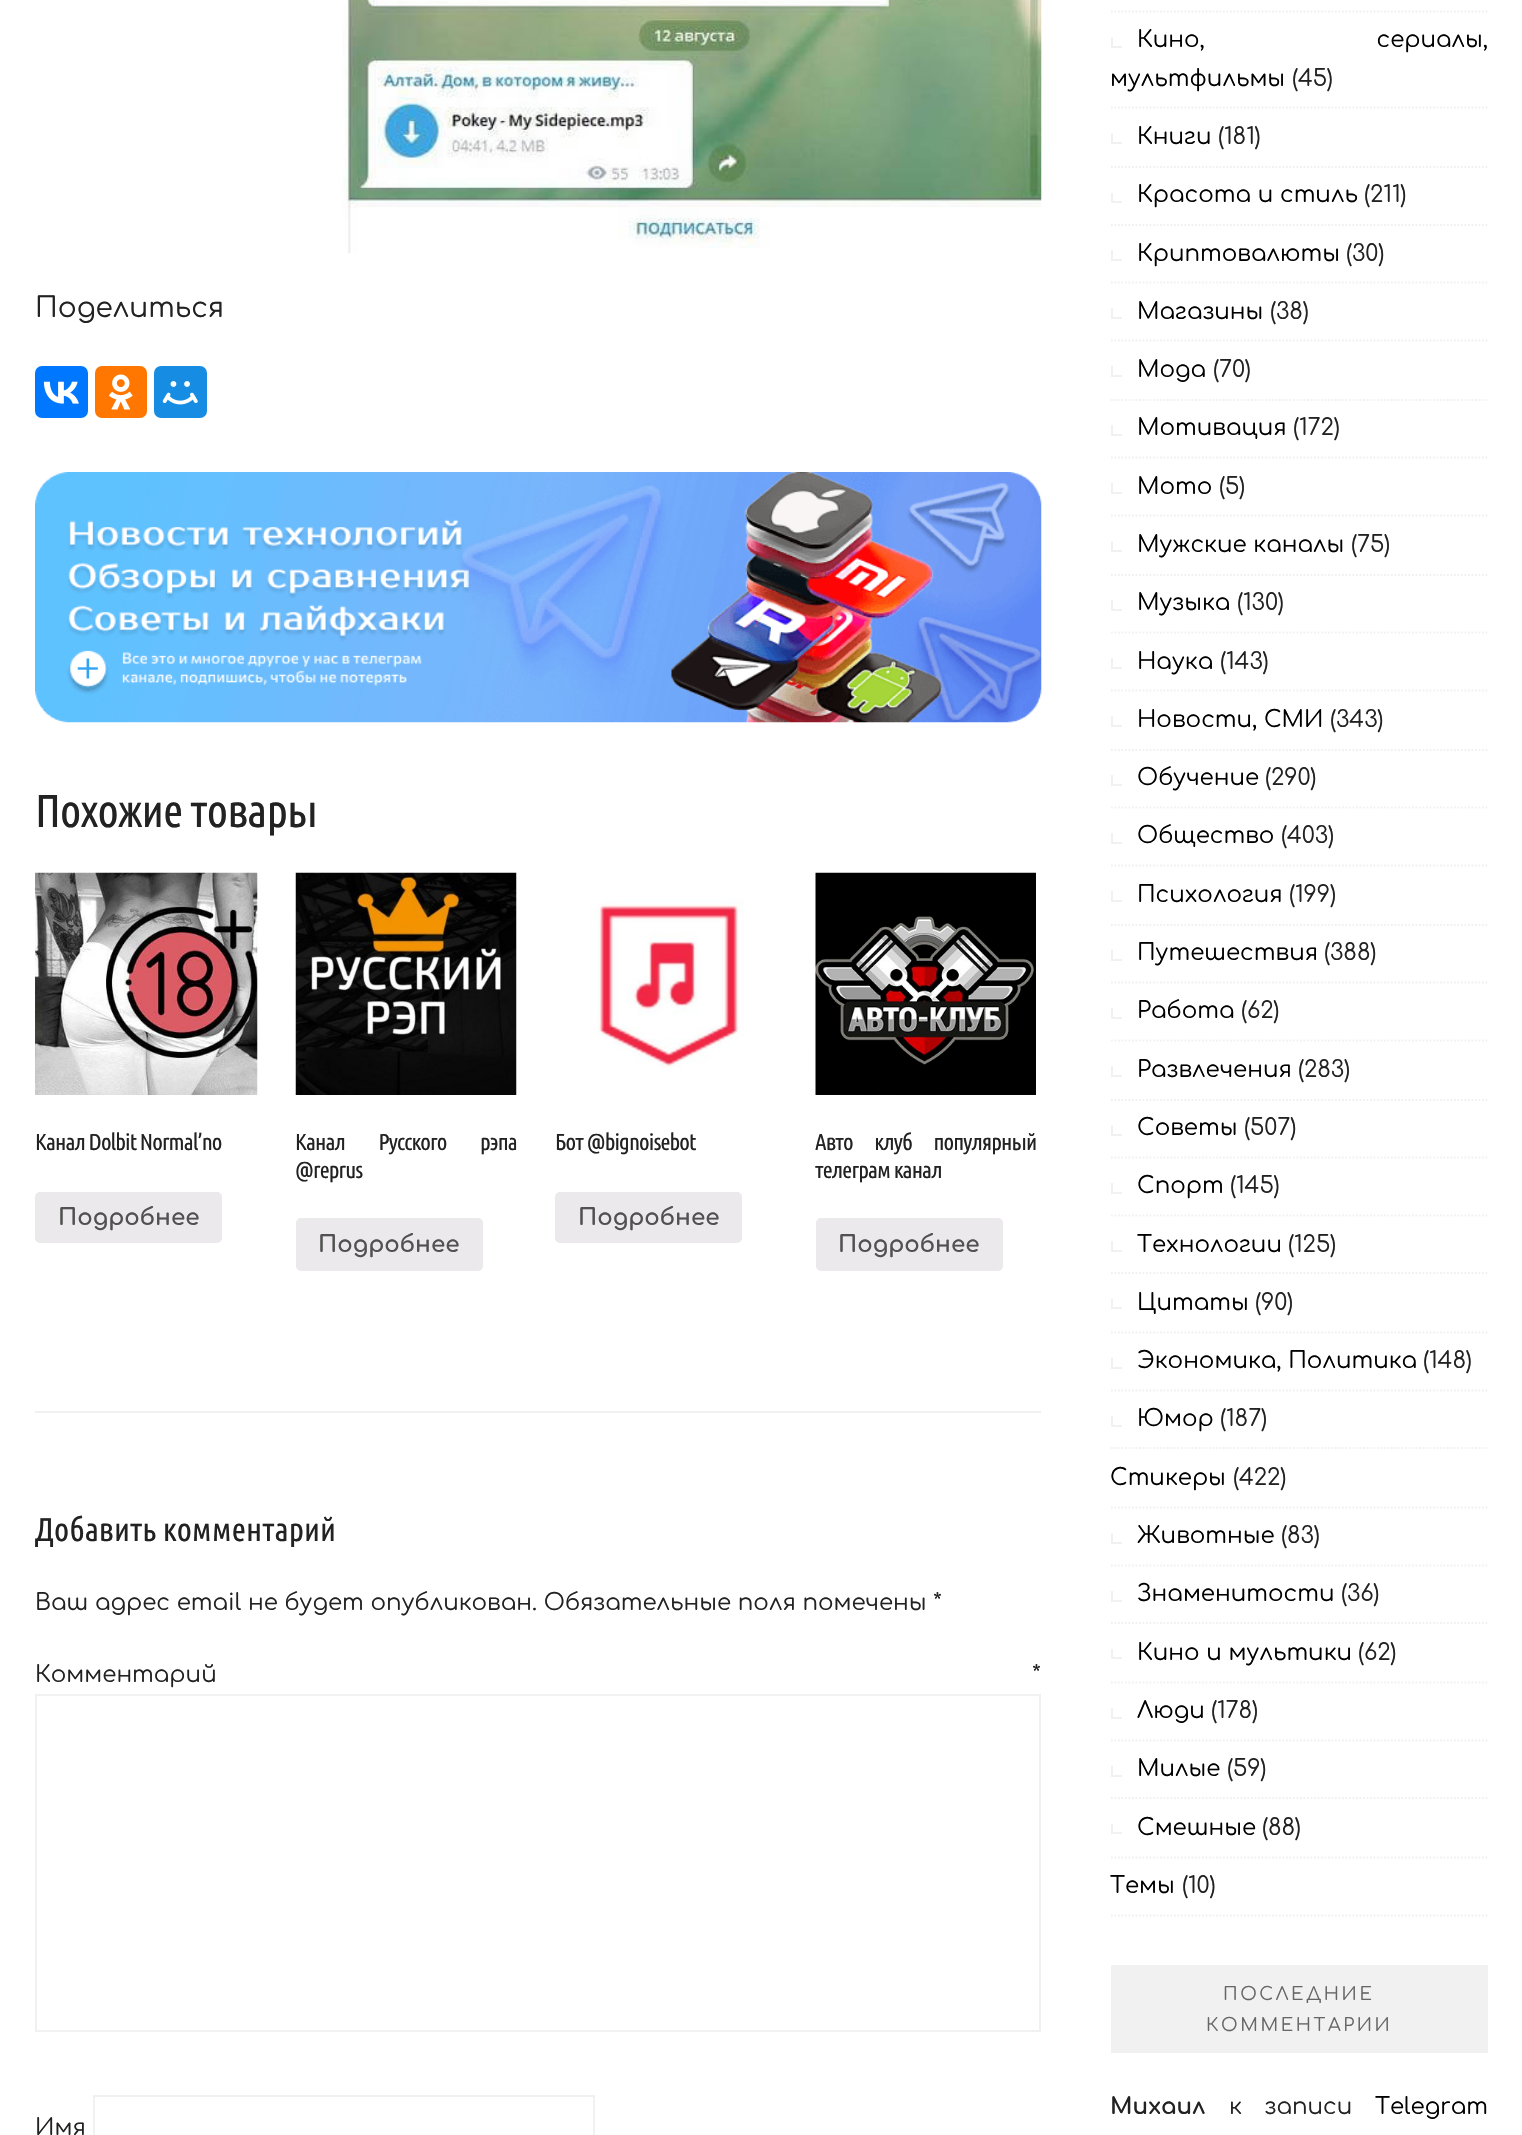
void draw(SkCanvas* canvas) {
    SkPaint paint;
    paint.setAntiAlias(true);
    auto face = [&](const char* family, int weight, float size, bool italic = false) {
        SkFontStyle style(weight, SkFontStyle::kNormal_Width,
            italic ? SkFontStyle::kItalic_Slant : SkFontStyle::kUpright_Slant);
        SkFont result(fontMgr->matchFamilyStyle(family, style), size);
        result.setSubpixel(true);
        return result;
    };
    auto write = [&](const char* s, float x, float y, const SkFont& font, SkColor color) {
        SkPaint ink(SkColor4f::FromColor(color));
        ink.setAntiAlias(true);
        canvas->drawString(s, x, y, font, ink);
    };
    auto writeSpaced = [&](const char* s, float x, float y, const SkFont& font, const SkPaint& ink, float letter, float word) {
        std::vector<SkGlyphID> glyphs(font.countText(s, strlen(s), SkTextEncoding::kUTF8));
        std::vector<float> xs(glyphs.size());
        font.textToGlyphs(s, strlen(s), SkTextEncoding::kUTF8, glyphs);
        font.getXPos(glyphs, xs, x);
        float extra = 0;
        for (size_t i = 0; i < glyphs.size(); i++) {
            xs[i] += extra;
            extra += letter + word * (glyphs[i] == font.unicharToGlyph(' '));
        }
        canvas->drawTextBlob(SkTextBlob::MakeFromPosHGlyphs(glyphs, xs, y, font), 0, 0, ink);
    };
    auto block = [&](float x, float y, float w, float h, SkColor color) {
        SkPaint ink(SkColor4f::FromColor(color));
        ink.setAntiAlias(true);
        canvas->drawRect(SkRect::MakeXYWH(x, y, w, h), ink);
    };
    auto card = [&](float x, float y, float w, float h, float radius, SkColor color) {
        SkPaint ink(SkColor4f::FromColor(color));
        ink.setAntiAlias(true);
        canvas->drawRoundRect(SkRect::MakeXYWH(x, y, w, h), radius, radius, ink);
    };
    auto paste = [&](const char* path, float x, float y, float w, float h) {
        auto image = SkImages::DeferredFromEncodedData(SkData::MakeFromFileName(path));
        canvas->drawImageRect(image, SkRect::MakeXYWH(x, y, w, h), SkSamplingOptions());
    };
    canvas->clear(SK_ColorWHITE);
    paste("pic1.png", 342, 0, 700, 254);
    auto kFont1 = face("Comfortaa", 400, 28);
    write("Поделиться", 35, 317, kFont1, SkColorSetRGB(34, 34, 34));
    card(35, 366, 53, 52, 7, SkColorSetRGB(0, 119, 255));
    paste("pic2.png", 43, 381, 36, 23);
    card(95, 366, 52, 52, 7, SkColorSetRGB(255, 119, 0));
    paste("pic3.png", 109, 374, 24, 36);
    card(154, 366, 53, 52, 7, SkColorSetRGB(22, 141, 226));
    paste("pic4.png", 162, 381, 36, 24);
    paste("pic5.png", 35, 472, 1007, 251);
    auto kFont2 = face("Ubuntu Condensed", 400, 46);
    paint.setColor(SkColorSetRGB(34, 34, 34));
    writeSpaced("Похожие товары", 35, 827, kFont2, paint, -0.9f, 0);
    paste("pic6.png", 35, 872, 223, 223);
    auto kFont3 = face("Ubuntu Condensed", 400, 22.95f);
    writeSpaced("Канал Dolbit Normal’no", 35, 1150, kFont3, paint, -0.9f, 0);
    card(35, 1192, 187, 51, 5, SkColorSetRGB(235, 233, 235));
    auto kFont4 = face("Comfortaa", 700, 22.95f);
    write("Подробнее", 58, 1225, kFont4, SkColorSetRGB(81, 81, 81));
    paste("pic7.png", 295, 872, 222, 223);
    writeSpaced("Канал Русского рэпа", 295, 1150, kFont3, paint, -0.9f, 30);
    writeSpaced("@reprus", 295, 1178, kFont3, paint, -0.9f, 0);
    card(296, 1218, 187, 53, 5, SkColorSetRGB(235, 233, 235));
    write("Подробнее", 318, 1252, kFont4, SkColorSetRGB(81, 81, 81));
    paste("pic8.png", 590, 899, 154, 172);
    writeSpaced("Бот @bignoisebot", 555, 1150, kFont3, paint, -0.9f, 0);
    card(555, 1192, 187, 51, 5, SkColorSetRGB(235, 233, 235));
    write("Подробнее", 578, 1225, kFont4, SkColorSetRGB(81, 81, 81));
    paste("pic9.png", 815, 872, 221, 223);
    writeSpaced("Авто клуб популярный", 815, 1150, kFont3, paint, -0.9f, 18);
    writeSpaced("телеграм канал", 815, 1178, kFont3, paint, -0.9f, 0);
    card(816, 1218, 187, 53, 5, SkColorSetRGB(235, 233, 235));
    write("Подробнее", 838, 1252, kFont4, SkColorSetRGB(81, 81, 81));
    block(35, 1411, 1006, 2, SkColorSetRGB(241, 241, 241));
    auto kFont5 = face("Ubuntu Condensed", 400, 32.75f);
    write("Добавить комментарий", 35, 1541, kFont5, SkColorSetRGB(34, 34, 34));
    auto kFont6 = face("Comfortaa", 400, 22.95f);
    write("Ваш адрес email не будет опубликован. Обязательные поля помечены", 35, 1610, kFont6, SkColorSetRGB(34, 34, 34));
    write("*", 933, 1610, kFont6, SkColorSetRGB(34, 34, 34));
    write("Комментарий", 35, 1682, kFont6, SkColorSetRGB(34, 34, 34));
    write("*", 1032, 1682, kFont6, SkColorSetRGB(34, 34, 34));
    paint.setStyle(SkPaint::kStroke_Style);
    paint.setStrokeWidth(2);
    paint.setColor(SkColorSetRGB(241, 241, 241));
    canvas->drawRect(SkRect::MakeXYWH(36, 1695, 1004, 336), paint);
    write("Имя", 35, 2135, kFont6, SkColorSetRGB(34, 34, 34));
    canvas->drawRect(SkRect::MakeXYWH(94, 2096, 500, 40), paint);
    paint.setStrokeWidth(1.8f);
    paint.setPathEffect(SkDashPathEffect::Make({{1.75f, 1.75f}}, 0));
    canvas->drawPath(SkPathBuilder().moveTo(1111, 1448).lineTo(1487.5f, 1448).detach(), paint);
    paint.setPathEffect(nullptr);
    paint.setPathEffect(SkDashPathEffect::Make({{1.75f, 1.75f}}, 0));
    canvas->drawPath(SkPathBuilder().moveTo(1111, 11.5f).lineTo(1487.5f, 11.5f).detach(), paint);
    paint.setPathEffect(nullptr);
    block(1111, 46, 11, 2, SkColorSetRGB(241, 241, 241));
    block(1111, 37, 2, 10, SkColorSetRGB(241, 241, 241));
    paint.setStyle(SkPaint::kFill_Style);
    paint.setColor(SK_ColorBLACK);
    writeSpaced("Кино, сериалы,", 1137, 47, kFont6, paint, 0, 165);
    write("мультфильмы", 1110, 86, kFont6, SK_ColorBLACK);
    write("(45)", 1292, 86, kFont6, SkColorSetRGB(34, 34, 34));
    paint.setStyle(SkPaint::kStroke_Style);
    paint.setColor(SkColorSetRGB(241, 241, 241));
    paint.setPathEffect(SkDashPathEffect::Make({{1.75f, 1.75f}}, 0));
    canvas->drawPath(SkPathBuilder().moveTo(1111, 107.5f).lineTo(1487.5f, 107.5f).detach(), paint);
    paint.setPathEffect(nullptr);
    block(1111, 142, 11, 2, SkColorSetRGB(241, 241, 241));
    block(1111, 133, 2, 11, SkColorSetRGB(241, 241, 241));
    write("Книги", 1137, 144, kFont6, SK_ColorBLACK);
    write("(181)", 1218, 144, kFont6, SkColorSetRGB(34, 34, 34));
    paint.setPathEffect(SkDashPathEffect::Make({{1.75f, 1.75f}}, 0));
    canvas->drawPath(SkPathBuilder().moveTo(1111, 167).lineTo(1487.5f, 167).detach(), paint);
    paint.setPathEffect(nullptr);
    block(1111, 201, 11, 2, SkColorSetRGB(241, 241, 241));
    block(1111, 193, 2, 10, SkColorSetRGB(241, 241, 241));
    write("Красота и стиль", 1137, 202, kFont6, SK_ColorBLACK);
    write("(211)", 1364, 202, kFont6, SkColorSetRGB(34, 34, 34));
    paint.setPathEffect(SkDashPathEffect::Make({{1.75f, 1.75f}}, 0));
    canvas->drawPath(SkPathBuilder().moveTo(1111, 225).lineTo(1487.5f, 225).detach(), paint);
    paint.setPathEffect(nullptr);
    block(1111, 259, 11, 2, SkColorSetRGB(241, 241, 241));
    block(1111, 250, 2, 11, SkColorSetRGB(241, 241, 241));
    write("Криптовалюты", 1137, 261, kFont6, SK_ColorBLACK);
    write("(30)", 1346, 261, kFont6, SkColorSetRGB(34, 34, 34));
    paint.setPathEffect(SkDashPathEffect::Make({{1.75f, 1.75f}}, 0));
    canvas->drawPath(SkPathBuilder().moveTo(1111, 282.5f).lineTo(1487.5f, 282.5f).detach(), paint);
    paint.setPathEffect(nullptr);
    block(1111, 317, 11, 2, SkColorSetRGB(241, 241, 241));
    block(1111, 308, 2, 11, SkColorSetRGB(241, 241, 241));
    write("Магазины", 1137, 319, kFont6, SK_ColorBLACK);
    write("(38)", 1270, 319, kFont6, SkColorSetRGB(34, 34, 34));
    paint.setPathEffect(SkDashPathEffect::Make({{1.75f, 1.75f}}, 0));
    canvas->drawPath(SkPathBuilder().moveTo(1111, 340.5f).lineTo(1487.5f, 340.5f).detach(), paint);
    paint.setPathEffect(nullptr);
    block(1111, 375, 11, 2, SkColorSetRGB(241, 241, 241));
    block(1111, 366, 2, 10, SkColorSetRGB(241, 241, 241));
    write("Мода", 1137, 377, kFont6, SK_ColorBLACK);
    write("(70)", 1213, 377, kFont6, SkColorSetRGB(34, 34, 34));
    paint.setPathEffect(SkDashPathEffect::Make({{1.75f, 1.75f}}, 0));
    canvas->drawPath(SkPathBuilder().moveTo(1111, 400).lineTo(1487.5f, 400).detach(), paint);
    paint.setPathEffect(nullptr);
    block(1111, 434, 11, 2, SkColorSetRGB(241, 241, 241));
    block(1111, 425, 2, 11, SkColorSetRGB(241, 241, 241));
    write("Мотивация", 1137, 435, kFont6, SK_ColorBLACK);
    write("(172)", 1293, 435, kFont6, SkColorSetRGB(34, 34, 34));
    paint.setPathEffect(SkDashPathEffect::Make({{1.75f, 1.75f}}, 0));
    canvas->drawPath(SkPathBuilder().moveTo(1111, 457.5f).lineTo(1487.5f, 457.5f).detach(), paint);
    paint.setPathEffect(nullptr);
    block(1111, 492, 11, 2, SkColorSetRGB(241, 241, 241));
    block(1111, 483, 2, 11, SkColorSetRGB(241, 241, 241));
    write("Мото", 1137, 494, kFont6, SK_ColorBLACK);
    write("(5)", 1219, 494, kFont6, SkColorSetRGB(34, 34, 34));
    paint.setPathEffect(SkDashPathEffect::Make({{1.75f, 1.75f}}, 0));
    canvas->drawPath(SkPathBuilder().moveTo(1111, 515.5f).lineTo(1487.5f, 515.5f).detach(), paint);
    paint.setPathEffect(nullptr);
    block(1111, 550, 11, 2, SkColorSetRGB(241, 241, 241));
    block(1111, 541, 2, 10, SkColorSetRGB(241, 241, 241));
    write("Мужские каналы", 1137, 552, kFont6, SK_ColorBLACK);
    write("(75)", 1351, 552, kFont6, SkColorSetRGB(34, 34, 34));
    paint.setPathEffect(SkDashPathEffect::Make({{1.75f, 1.75f}}, 0));
    canvas->drawPath(SkPathBuilder().moveTo(1111, 575).lineTo(1487.5f, 575).detach(), paint);
    paint.setPathEffect(nullptr);
    block(1111, 609, 11, 2, SkColorSetRGB(241, 241, 241));
    block(1111, 600, 2, 11, SkColorSetRGB(241, 241, 241));
    write("Музыка", 1137, 610, kFont6, SK_ColorBLACK);
    write("(130)", 1237, 610, kFont6, SkColorSetRGB(34, 34, 34));
    paint.setPathEffect(SkDashPathEffect::Make({{1.75f, 1.75f}}, 0));
    canvas->drawPath(SkPathBuilder().moveTo(1111, 632.5f).lineTo(1487.5f, 632.5f).detach(), paint);
    paint.setPathEffect(nullptr);
    block(1111, 667, 11, 2, SkColorSetRGB(241, 241, 241));
    block(1111, 658, 2, 11, SkColorSetRGB(241, 241, 241));
    write("Наука", 1137, 669, kFont6, SK_ColorBLACK);
    write("(143)", 1220, 669, kFont6, SkColorSetRGB(34, 34, 34));
    paint.setPathEffect(SkDashPathEffect::Make({{1.75f, 1.75f}}, 0));
    canvas->drawPath(SkPathBuilder().moveTo(1111, 690.5f).lineTo(1487.5f, 690.5f).detach(), paint);
    paint.setPathEffect(nullptr);
    block(1111, 725, 11, 2, SkColorSetRGB(241, 241, 241));
    block(1111, 716, 2, 10, SkColorSetRGB(241, 241, 241));
    write("Новости, СМИ", 1137, 727, kFont6, SK_ColorBLACK);
    write("(343)", 1330, 727, kFont6, SkColorSetRGB(34, 34, 34));
    paint.setPathEffect(SkDashPathEffect::Make({{1.75f, 1.75f}}, 0));
    canvas->drawPath(SkPathBuilder().moveTo(1111, 750).lineTo(1487.5f, 750).detach(), paint);
    paint.setPathEffect(nullptr);
    block(1111, 784, 11, 2, SkColorSetRGB(241, 241, 241));
    block(1111, 775, 2, 11, SkColorSetRGB(241, 241, 241));
    write("Обучение", 1137, 785, kFont6, SK_ColorBLACK);
    write("(290)", 1265, 785, kFont6, SkColorSetRGB(34, 34, 34));
    paint.setPathEffect(SkDashPathEffect::Make({{1.75f, 1.75f}}, 0));
    canvas->drawPath(SkPathBuilder().moveTo(1111, 807.5f).lineTo(1487.5f, 807.5f).detach(), paint);
    paint.setPathEffect(nullptr);
    block(1111, 842, 11, 2, SkColorSetRGB(241, 241, 241));
    block(1111, 833, 2, 11, SkColorSetRGB(241, 241, 241));
    write("Общество", 1137, 843, kFont6, SK_ColorBLACK);
    write("(403)", 1281, 843, kFont6, SkColorSetRGB(34, 34, 34));
    paint.setPathEffect(SkDashPathEffect::Make({{1.75f, 1.75f}}, 0));
    canvas->drawPath(SkPathBuilder().moveTo(1111, 865.5f).lineTo(1487.5f, 865.5f).detach(), paint);
    paint.setPathEffect(nullptr);
    block(1111, 900, 11, 2, SkColorSetRGB(241, 241, 241));
    block(1111, 891, 2, 10, SkColorSetRGB(241, 241, 241));
    write("Психология", 1137, 902, kFont6, SK_ColorBLACK);
    write("(199)", 1289, 902, kFont6, SkColorSetRGB(34, 34, 34));
    paint.setPathEffect(SkDashPathEffect::Make({{1.75f, 1.75f}}, 0));
    canvas->drawPath(SkPathBuilder().moveTo(1111, 925).lineTo(1487.5f, 925).detach(), paint);
    paint.setPathEffect(nullptr);
    block(1111, 959, 11, 2, SkColorSetRGB(241, 241, 241));
    block(1111, 950, 2, 11, SkColorSetRGB(241, 241, 241));
    write("Путешествия", 1137, 960, kFont6, SK_ColorBLACK);
    write("(388)", 1324, 960, kFont6, SkColorSetRGB(34, 34, 34));
    paint.setPathEffect(SkDashPathEffect::Make({{1.75f, 1.75f}}, 0));
    canvas->drawPath(SkPathBuilder().moveTo(1111, 982.5f).lineTo(1487.5f, 982.5f).detach(), paint);
    paint.setPathEffect(nullptr);
    block(1111, 1017, 11, 2, SkColorSetRGB(241, 241, 241));
    block(1111, 1008, 2, 11, SkColorSetRGB(241, 241, 241));
    write("Работа", 1137, 1018, kFont6, SK_ColorBLACK);
    write("(62)", 1241, 1018, kFont6, SkColorSetRGB(34, 34, 34));
    paint.setPathEffect(SkDashPathEffect::Make({{1.75f, 1.75f}}, 0));
    canvas->drawPath(SkPathBuilder().moveTo(1111, 1040.5f).lineTo(1487.5f, 1040.5f).detach(), paint);
    paint.setPathEffect(nullptr);
    block(1111, 1075, 11, 2, SkColorSetRGB(241, 241, 241));
    block(1111, 1066, 2, 10, SkColorSetRGB(241, 241, 241));
    write("Развлечения", 1137, 1077, kFont6, SK_ColorBLACK);
    write("(283)", 1298, 1077, kFont6, SkColorSetRGB(34, 34, 34));
    paint.setPathEffect(SkDashPathEffect::Make({{1.75f, 1.75f}}, 0));
    canvas->drawPath(SkPathBuilder().moveTo(1111, 1100).lineTo(1487.5f, 1100).detach(), paint);
    paint.setPathEffect(nullptr);
    block(1111, 1134, 11, 2, SkColorSetRGB(241, 241, 241));
    block(1111, 1125, 2, 11, SkColorSetRGB(241, 241, 241));
    write("Советы", 1137, 1135, kFont6, SK_ColorBLACK);
    write("(507)", 1244, 1135, kFont6, SkColorSetRGB(34, 34, 34));
    paint.setPathEffect(SkDashPathEffect::Make({{1.75f, 1.75f}}, 0));
    canvas->drawPath(SkPathBuilder().moveTo(1111, 1157.5f).lineTo(1487.5f, 1157.5f).detach(), paint);
    paint.setPathEffect(nullptr);
    block(1111, 1192, 11, 2, SkColorSetRGB(241, 241, 241));
    block(1111, 1183, 2, 11, SkColorSetRGB(241, 241, 241));
    write("Спорт", 1137, 1193, kFont6, SK_ColorBLACK);
    write("(145)", 1230, 1193, kFont6, SkColorSetRGB(34, 34, 34));
    paint.setPathEffect(SkDashPathEffect::Make({{1.75f, 1.75f}}, 0));
    canvas->drawPath(SkPathBuilder().moveTo(1111, 1215.5f).lineTo(1487.5f, 1215.5f).detach(), paint);
    paint.setPathEffect(nullptr);
    block(1111, 1250, 11, 2, SkColorSetRGB(241, 241, 241));
    block(1111, 1241, 2, 10, SkColorSetRGB(241, 241, 241));
    write("Технологии", 1137, 1252, kFont6, SK_ColorBLACK);
    write("(125)", 1288, 1252, kFont6, SkColorSetRGB(34, 34, 34));
    paint.setPathEffect(SkDashPathEffect::Make({{1.75f, 1.75f}}, 0));
    canvas->drawPath(SkPathBuilder().moveTo(1111, 1273).lineTo(1487.5f, 1273).detach(), paint);
    paint.setPathEffect(nullptr);
    block(1111, 1307, 11, 2, SkColorSetRGB(241, 241, 241));
    block(1111, 1299, 2, 10, SkColorSetRGB(241, 241, 241));
    write("Цитаты", 1137, 1310, kFont6, SK_ColorBLACK);
    write("(90)", 1255, 1310, kFont6, SkColorSetRGB(34, 34, 34));
    paint.setPathEffect(SkDashPathEffect::Make({{1.75f, 1.75f}}, 0));
    canvas->drawPath(SkPathBuilder().moveTo(1111, 1332.5f).lineTo(1487.5f, 1332.5f).detach(), paint);
    paint.setPathEffect(nullptr);
    block(1111, 1367, 11, 2, SkColorSetRGB(241, 241, 241));
    block(1111, 1358, 2, 11, SkColorSetRGB(241, 241, 241));
    write("Экономика, Политика", 1137, 1368, kFont6, SK_ColorBLACK);
    write("(148)", 1423, 1368, kFont6, SkColorSetRGB(34, 34, 34));
    paint.setPathEffect(SkDashPathEffect::Make({{1.75f, 1.75f}}, 0));
    canvas->drawPath(SkPathBuilder().moveTo(1111, 1390.5f).lineTo(1487.5f, 1390.5f).detach(), paint);
    paint.setPathEffect(nullptr);
    block(1111, 1425, 11, 2, SkColorSetRGB(241, 241, 241));
    block(1111, 1416, 2, 10, SkColorSetRGB(241, 241, 241));
    write("Юмор", 1137, 1426, kFont6, SK_ColorBLACK);
    write("(187)", 1220, 1426, kFont6, SkColorSetRGB(34, 34, 34));
    paint.setPathEffect(SkDashPathEffect::Make({{1.75f, 1.75f}}, 0));
    canvas->drawPath(SkPathBuilder().moveTo(1111, 1857.5f).lineTo(1487.5f, 1857.5f).detach(), paint);
    paint.setPathEffect(nullptr);
    write("Стикеры", 1110, 1485, kFont6, SK_ColorBLACK);
    write("(422)", 1233, 1485, kFont6, SkColorSetRGB(34, 34, 34));
    paint.setPathEffect(SkDashPathEffect::Make({{1.75f, 1.75f}}, 0));
    canvas->drawPath(SkPathBuilder().moveTo(1111, 1507.5f).lineTo(1487.5f, 1507.5f).detach(), paint);
    paint.setPathEffect(nullptr);
    block(1111, 1542, 11, 2, SkColorSetRGB(241, 241, 241));
    block(1111, 1533, 2, 11, SkColorSetRGB(241, 241, 241));
    write("Животные", 1137, 1543, kFont6, SK_ColorBLACK);
    write("(83)", 1281, 1543, kFont6, SkColorSetRGB(34, 34, 34));
    paint.setPathEffect(SkDashPathEffect::Make({{1.75f, 1.75f}}, 0));
    canvas->drawPath(SkPathBuilder().moveTo(1111, 1565.5f).lineTo(1487.5f, 1565.5f).detach(), paint);
    paint.setPathEffect(nullptr);
    block(1111, 1600, 11, 2, SkColorSetRGB(241, 241, 241));
    block(1111, 1591, 2, 10, SkColorSetRGB(241, 241, 241));
    write("Знаменитости", 1137, 1601, kFont6, SK_ColorBLACK);
    write("(36)", 1341, 1601, kFont6, SkColorSetRGB(34, 34, 34));
    paint.setPathEffect(SkDashPathEffect::Make({{1.75f, 1.75f}}, 0));
    canvas->drawPath(SkPathBuilder().moveTo(1111, 1623).lineTo(1487.5f, 1623).detach(), paint);
    paint.setPathEffect(nullptr);
    block(1111, 1657, 11, 2, SkColorSetRGB(241, 241, 241));
    block(1111, 1649, 2, 10, SkColorSetRGB(241, 241, 241));
    write("Кино и мультики", 1137, 1660, kFont6, SK_ColorBLACK);
    write("(62)", 1358, 1660, kFont6, SkColorSetRGB(34, 34, 34));
    paint.setPathEffect(SkDashPathEffect::Make({{1.75f, 1.75f}}, 0));
    canvas->drawPath(SkPathBuilder().moveTo(1111, 1682.5f).lineTo(1487.5f, 1682.5f).detach(), paint);
    paint.setPathEffect(nullptr);
    block(1111, 1717, 11, 2, SkColorSetRGB(241, 241, 241));
    block(1111, 1708, 2, 11, SkColorSetRGB(241, 241, 241));
    write("Люди", 1137, 1718, kFont6, SK_ColorBLACK);
    write("(178)", 1211, 1718, kFont6, SkColorSetRGB(34, 34, 34));
    paint.setPathEffect(SkDashPathEffect::Make({{1.75f, 1.75f}}, 0));
    canvas->drawPath(SkPathBuilder().moveTo(1111, 1740.5f).lineTo(1487.5f, 1740.5f).detach(), paint);
    paint.setPathEffect(nullptr);
    block(1111, 1775, 11, 2, SkColorSetRGB(241, 241, 241));
    block(1111, 1766, 2, 10, SkColorSetRGB(241, 241, 241));
    write("Милые", 1137, 1776, kFont6, SK_ColorBLACK);
    write("(59)", 1227, 1776, kFont6, SkColorSetRGB(34, 34, 34));
    paint.setPathEffect(SkDashPathEffect::Make({{1.75f, 1.75f}}, 0));
    canvas->drawPath(SkPathBuilder().moveTo(1111, 1798).lineTo(1487.5f, 1798).detach(), paint);
    paint.setPathEffect(nullptr);
    block(1111, 1832, 11, 2, SkColorSetRGB(241, 241, 241));
    block(1111, 1824, 2, 10, SkColorSetRGB(241, 241, 241));
    write("Смешные", 1137, 1835, kFont6, SK_ColorBLACK);
    write("(88)", 1262, 1835, kFont6, SkColorSetRGB(34, 34, 34));
    paint.setPathEffect(SkDashPathEffect::Make({{1.75f, 1.75f}}, 0));
    canvas->drawPath(SkPathBuilder().moveTo(1111, 1915.5f).lineTo(1487.5f, 1915.5f).detach(), paint);
    paint.setPathEffect(nullptr);
    write("Темы", 1110, 1893, kFont6, SK_ColorBLACK);
    write("(10)", 1182, 1893, kFont6, SkColorSetRGB(34, 34, 34));
    block(1111, 1965, 377, 88, SkColorSetRGB(241, 241, 241));
    auto kFont7 = face("Comfortaa", 400, 18);
    paint.setStyle(SkPaint::kFill_Style);
    paint.setColor(SkColorSetRGB(102, 102, 102));
    writeSpaced("ПОСЛЕДНИЕ", 1223, 2000, kFont7, paint, 2.6f, 0);
    writeSpaced("КОММЕНТАРИИ", 1206, 2031, kFont7, paint, 2.6f, 0);
    write("Михаил", 1110, 2114, kFont4, SkColorSetRGB(34, 34, 34));
    paint.setColor(SkColorSetRGB(34, 34, 34));
    writeSpaced("к записи", 1229, 2114, kFont6, paint, 0, 16);
    write("Telegram", 1375, 2114, kFont6, SK_ColorBLACK);
}
